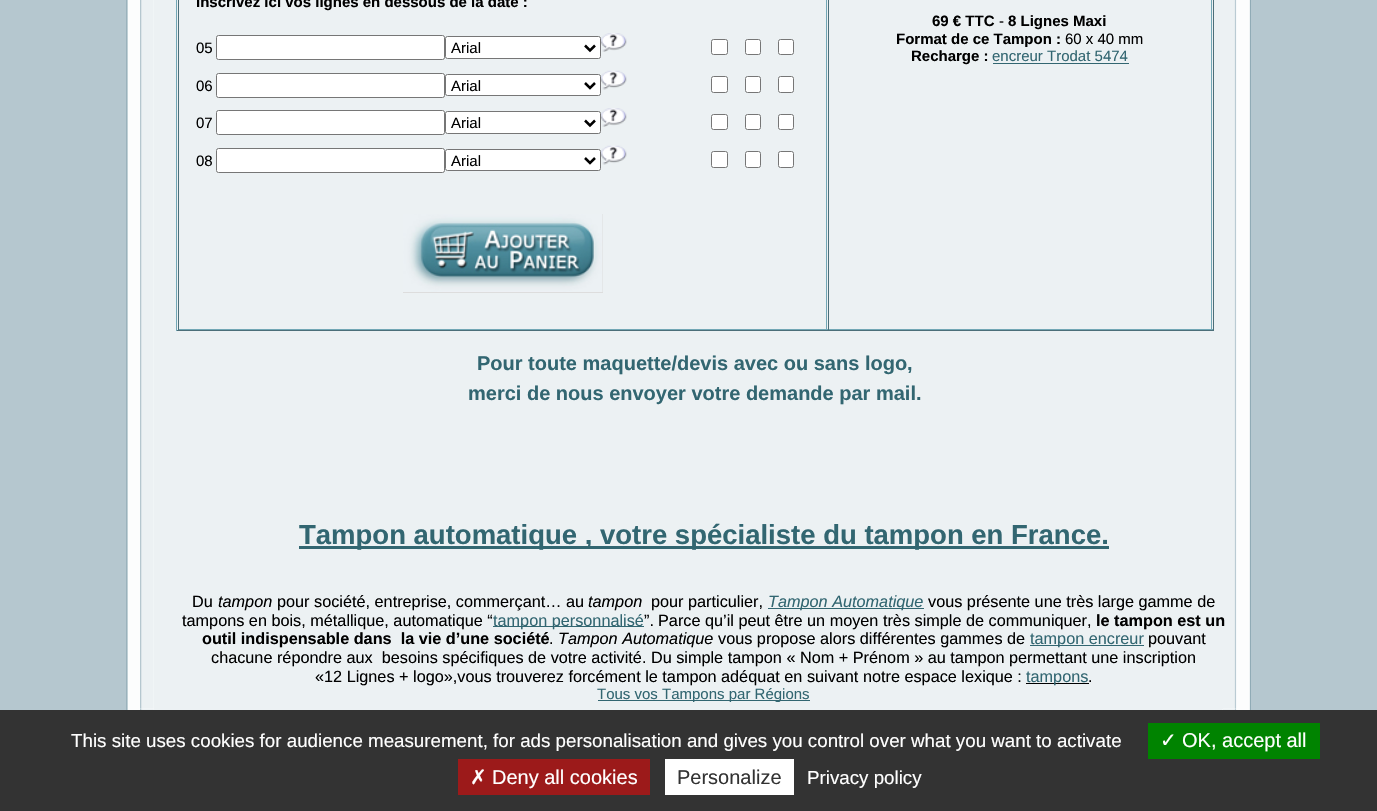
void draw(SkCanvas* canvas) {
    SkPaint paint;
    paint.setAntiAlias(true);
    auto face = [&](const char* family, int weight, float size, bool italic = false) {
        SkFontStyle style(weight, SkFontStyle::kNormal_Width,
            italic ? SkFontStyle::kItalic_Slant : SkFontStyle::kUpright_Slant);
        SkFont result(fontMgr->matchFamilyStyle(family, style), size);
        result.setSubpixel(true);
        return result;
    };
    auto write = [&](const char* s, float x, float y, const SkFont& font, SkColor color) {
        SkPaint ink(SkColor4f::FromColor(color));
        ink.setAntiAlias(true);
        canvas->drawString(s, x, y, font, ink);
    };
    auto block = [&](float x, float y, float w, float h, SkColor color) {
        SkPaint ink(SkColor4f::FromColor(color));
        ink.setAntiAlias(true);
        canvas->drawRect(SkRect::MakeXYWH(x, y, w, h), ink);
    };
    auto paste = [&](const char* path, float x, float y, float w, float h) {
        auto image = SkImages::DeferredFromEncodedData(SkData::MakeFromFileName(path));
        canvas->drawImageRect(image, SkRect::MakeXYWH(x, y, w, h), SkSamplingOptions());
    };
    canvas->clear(SkColorSetRGB(181, 199, 207));
    paste("pic1.png", 126, 0, 14, 710);
    block(140, 0, 1098, 710, SkColorSetRGB(252, 253, 253));
    paste("pic2.png", 140, 0, 14, 708);
    paste("pic9.png", 1222, 708, 15, 2);
    block(154, 0, 1069, 709, SkColorSetRGB(236, 241, 243));
    block(1213, 0, 1, 331, SkColorSetRGB(76, 111, 121));
    block(176, 330, 1038, 1, SkColorSetRGB(76, 111, 121));
    block(176, 0, 1, 331, SkColorSetRGB(114, 167, 181));
    block(826, 0, 1, 330, SkColorSetRGB(114, 167, 181));
    block(178, 329, 650, 1, SkColorSetRGB(114, 167, 181));
    block(178, 0, 1, 330, SkColorSetRGB(76, 111, 121));
    auto kFont1 = face("Liberation Sans", 700, 15);
    write("Inscrivez ici vos lignes en dessous de la date :", 196, 7, kFont1, SK_ColorBLACK);
    auto kFont2 = face("Liberation Sans", 400, 15);
    write("05", 196, 53, kFont2, SK_ColorBLACK);
    paint.setColor(SK_ColorWHITE);
    canvas->drawRoundRect(SkRect::MakeXYWH(216.5f, 35.5f, 228, 24), 2, 2, paint);
    paint.setStyle(SkPaint::kStroke_Style);
    paint.setStrokeWidth(1);
    paint.setColor(SkColorSetRGB(118, 118, 118));
    canvas->drawRoundRect(SkRect::MakeXYWH(216.5f, 35.5f, 228, 24), 2, 2, paint);
    paint.setStyle(SkPaint::kFill_Style);
    paint.setColor(SK_ColorWHITE);
    canvas->drawRoundRect(SkRect::MakeXYWH(445.5f, 36.5f, 155, 22), 2, 2, paint);
    paint.setStyle(SkPaint::kStroke_Style);
    paint.setColor(SkColorSetRGB(118, 118, 118));
    canvas->drawRoundRect(SkRect::MakeXYWH(445.5f, 36.5f, 155, 22), 2, 2, paint);
    paint.setStrokeWidth(2.5f);
    paint.setColor(SK_ColorBLACK);
    canvas->drawPath(SkPathBuilder().moveTo(585, 45.5f).lineTo(590, 50.5f).lineTo(595, 45.5f).detach(), paint);
    write("Arial", 451, 53, kFont2, SK_ColorBLACK);
    paste("pic3.png", 601, 33, 26, 19);
    paint.setStyle(SkPaint::kFill_Style);
    paint.setColor(SK_ColorWHITE);
    canvas->drawRoundRect(SkRect::MakeXYWH(711.5f, 39.5f, 16, 15), 2, 2, paint);
    paint.setStyle(SkPaint::kStroke_Style);
    paint.setStrokeWidth(1);
    paint.setColor(SkColorSetRGB(118, 118, 118));
    canvas->drawRoundRect(SkRect::MakeXYWH(711.5f, 39.5f, 16, 15), 2, 2, paint);
    paint.setStyle(SkPaint::kFill_Style);
    paint.setColor(SK_ColorWHITE);
    canvas->drawRoundRect(SkRect::MakeXYWH(745.5f, 39.5f, 15, 15), 2, 2, paint);
    paint.setStyle(SkPaint::kStroke_Style);
    paint.setColor(SkColorSetRGB(118, 118, 118));
    canvas->drawRoundRect(SkRect::MakeXYWH(745.5f, 39.5f, 15, 15), 2, 2, paint);
    paint.setStyle(SkPaint::kFill_Style);
    paint.setColor(SK_ColorWHITE);
    canvas->drawRoundRect(SkRect::MakeXYWH(778.5f, 39.5f, 15, 15), 2, 2, paint);
    paint.setStyle(SkPaint::kStroke_Style);
    paint.setColor(SkColorSetRGB(118, 118, 118));
    canvas->drawRoundRect(SkRect::MakeXYWH(778.5f, 39.5f, 15, 15), 2, 2, paint);
    write("06", 196, 91, kFont2, SK_ColorBLACK);
    paint.setStyle(SkPaint::kFill_Style);
    paint.setColor(SK_ColorWHITE);
    canvas->drawRoundRect(SkRect::MakeXYWH(216.5f, 73.5f, 228, 24), 2, 2, paint);
    paint.setStyle(SkPaint::kStroke_Style);
    paint.setColor(SkColorSetRGB(118, 118, 118));
    canvas->drawRoundRect(SkRect::MakeXYWH(216.5f, 73.5f, 228, 24), 2, 2, paint);
    paint.setStyle(SkPaint::kFill_Style);
    paint.setColor(SK_ColorWHITE);
    canvas->drawRoundRect(SkRect::MakeXYWH(445.5f, 74.5f, 155, 21), 2, 2, paint);
    paint.setStyle(SkPaint::kStroke_Style);
    paint.setColor(SkColorSetRGB(118, 118, 118));
    canvas->drawRoundRect(SkRect::MakeXYWH(445.5f, 74.5f, 155, 21), 2, 2, paint);
    paint.setStrokeWidth(2.5f);
    paint.setColor(SK_ColorBLACK);
    canvas->drawPath(SkPathBuilder().moveTo(585, 83).lineTo(590, 88).lineTo(595, 83).detach(), paint);
    write("Arial", 451, 91, kFont2, SK_ColorBLACK);
    paste("pic4.png", 601, 70, 26, 20);
    paint.setStyle(SkPaint::kFill_Style);
    paint.setColor(SK_ColorWHITE);
    canvas->drawRoundRect(SkRect::MakeXYWH(711.5f, 76.5f, 16, 16), 2, 2, paint);
    paint.setStyle(SkPaint::kStroke_Style);
    paint.setStrokeWidth(1);
    paint.setColor(SkColorSetRGB(118, 118, 118));
    canvas->drawRoundRect(SkRect::MakeXYWH(711.5f, 76.5f, 16, 16), 2, 2, paint);
    paint.setStyle(SkPaint::kFill_Style);
    paint.setColor(SK_ColorWHITE);
    canvas->drawRoundRect(SkRect::MakeXYWH(745.5f, 76.5f, 15, 16), 2, 2, paint);
    paint.setStyle(SkPaint::kStroke_Style);
    paint.setColor(SkColorSetRGB(118, 118, 118));
    canvas->drawRoundRect(SkRect::MakeXYWH(745.5f, 76.5f, 15, 16), 2, 2, paint);
    paint.setStyle(SkPaint::kFill_Style);
    paint.setColor(SK_ColorWHITE);
    canvas->drawRoundRect(SkRect::MakeXYWH(778.5f, 76.5f, 15, 16), 2, 2, paint);
    paint.setStyle(SkPaint::kStroke_Style);
    paint.setColor(SkColorSetRGB(118, 118, 118));
    canvas->drawRoundRect(SkRect::MakeXYWH(778.5f, 76.5f, 15, 16), 2, 2, paint);
    write("07", 196, 128, kFont2, SK_ColorBLACK);
    paint.setStyle(SkPaint::kFill_Style);
    paint.setColor(SK_ColorWHITE);
    canvas->drawRoundRect(SkRect::MakeXYWH(216.5f, 110.5f, 228, 24), 2, 2, paint);
    paint.setStyle(SkPaint::kStroke_Style);
    paint.setColor(SkColorSetRGB(118, 118, 118));
    canvas->drawRoundRect(SkRect::MakeXYWH(216.5f, 110.5f, 228, 24), 2, 2, paint);
    paint.setStyle(SkPaint::kFill_Style);
    paint.setColor(SK_ColorWHITE);
    canvas->drawRoundRect(SkRect::MakeXYWH(445.5f, 111.5f, 155, 22), 2, 2, paint);
    paint.setStyle(SkPaint::kStroke_Style);
    paint.setColor(SkColorSetRGB(118, 118, 118));
    canvas->drawRoundRect(SkRect::MakeXYWH(445.5f, 111.5f, 155, 22), 2, 2, paint);
    paint.setStrokeWidth(2.5f);
    paint.setColor(SK_ColorBLACK);
    canvas->drawPath(SkPathBuilder().moveTo(585, 120.5f).lineTo(590, 125.5f).lineTo(595, 120.5f).detach(), paint);
    write("Arial", 451, 128, kFont2, SK_ColorBLACK);
    paste("pic3.png", 601, 108, 26, 19);
    paint.setStyle(SkPaint::kFill_Style);
    paint.setColor(SK_ColorWHITE);
    canvas->drawRoundRect(SkRect::MakeXYWH(711.5f, 114.5f, 16, 15), 2, 2, paint);
    paint.setStyle(SkPaint::kStroke_Style);
    paint.setStrokeWidth(1);
    paint.setColor(SkColorSetRGB(118, 118, 118));
    canvas->drawRoundRect(SkRect::MakeXYWH(711.5f, 114.5f, 16, 15), 2, 2, paint);
    paint.setStyle(SkPaint::kFill_Style);
    paint.setColor(SK_ColorWHITE);
    canvas->drawRoundRect(SkRect::MakeXYWH(745.5f, 114.5f, 15, 15), 2, 2, paint);
    paint.setStyle(SkPaint::kStroke_Style);
    paint.setColor(SkColorSetRGB(118, 118, 118));
    canvas->drawRoundRect(SkRect::MakeXYWH(745.5f, 114.5f, 15, 15), 2, 2, paint);
    paint.setStyle(SkPaint::kFill_Style);
    paint.setColor(SK_ColorWHITE);
    canvas->drawRoundRect(SkRect::MakeXYWH(778.5f, 114.5f, 15, 15), 2, 2, paint);
    paint.setStyle(SkPaint::kStroke_Style);
    paint.setColor(SkColorSetRGB(118, 118, 118));
    canvas->drawRoundRect(SkRect::MakeXYWH(778.5f, 114.5f, 15, 15), 2, 2, paint);
    write("08", 196, 166, kFont2, SK_ColorBLACK);
    paint.setStyle(SkPaint::kFill_Style);
    paint.setColor(SK_ColorWHITE);
    canvas->drawRoundRect(SkRect::MakeXYWH(216.5f, 148.5f, 228, 24), 2, 2, paint);
    paint.setStyle(SkPaint::kStroke_Style);
    paint.setColor(SkColorSetRGB(118, 118, 118));
    canvas->drawRoundRect(SkRect::MakeXYWH(216.5f, 148.5f, 228, 24), 2, 2, paint);
    paint.setStyle(SkPaint::kFill_Style);
    paint.setColor(SK_ColorWHITE);
    canvas->drawRoundRect(SkRect::MakeXYWH(445.5f, 149.5f, 155, 21), 2, 2, paint);
    paint.setStyle(SkPaint::kStroke_Style);
    paint.setColor(SkColorSetRGB(118, 118, 118));
    canvas->drawRoundRect(SkRect::MakeXYWH(445.5f, 149.5f, 155, 21), 2, 2, paint);
    paint.setStrokeWidth(2.5f);
    paint.setColor(SK_ColorBLACK);
    canvas->drawPath(SkPathBuilder().moveTo(585, 158).lineTo(590, 163).lineTo(595, 158).detach(), paint);
    write("Arial", 451, 166, kFont2, SK_ColorBLACK);
    paste("pic4.png", 601, 145, 26, 20);
    paint.setStyle(SkPaint::kFill_Style);
    paint.setColor(SK_ColorWHITE);
    canvas->drawRoundRect(SkRect::MakeXYWH(711.5f, 151.5f, 16, 16), 2, 2, paint);
    paint.setStyle(SkPaint::kStroke_Style);
    paint.setStrokeWidth(1);
    paint.setColor(SkColorSetRGB(118, 118, 118));
    canvas->drawRoundRect(SkRect::MakeXYWH(711.5f, 151.5f, 16, 16), 2, 2, paint);
    paint.setStyle(SkPaint::kFill_Style);
    paint.setColor(SK_ColorWHITE);
    canvas->drawRoundRect(SkRect::MakeXYWH(745.5f, 151.5f, 15, 16), 2, 2, paint);
    paint.setStyle(SkPaint::kStroke_Style);
    paint.setColor(SkColorSetRGB(118, 118, 118));
    canvas->drawRoundRect(SkRect::MakeXYWH(745.5f, 151.5f, 15, 16), 2, 2, paint);
    paint.setStyle(SkPaint::kFill_Style);
    paint.setColor(SK_ColorWHITE);
    canvas->drawRoundRect(SkRect::MakeXYWH(778.5f, 151.5f, 15, 16), 2, 2, paint);
    paint.setStyle(SkPaint::kStroke_Style);
    paint.setColor(SkColorSetRGB(118, 118, 118));
    canvas->drawRoundRect(SkRect::MakeXYWH(778.5f, 151.5f, 15, 16), 2, 2, paint);
    block(403, 214, 200, 79, SkColorSetRGB(221, 221, 221));
    paste("pic5.png", 403, 214, 200, 78);
    block(1211, 0, 1, 330, SkColorSetRGB(114, 167, 181));
    block(828, 329, 385, 1, SkColorSetRGB(114, 167, 181));
    block(828, 0, 1, 330, SkColorSetRGB(76, 111, 121));
    write("69 € TTC", 932, 26, kFont1, SK_ColorBLACK);
    write("-", 999, 26, kFont2, SK_ColorBLACK);
    write("8 Lignes Maxi", 1008, 26, kFont1, SK_ColorBLACK);
    write("Format de ce Tampon :", 896, 44, kFont1, SK_ColorBLACK);
    write("60 x 40 mm", 1065, 44, kFont2, SK_ColorBLACK);
    write("Recharge :", 911, 61, kFont1, SK_ColorBLACK);
    write("encreur Trodat 5474", 992, 61, kFont2, SkColorSetRGB(50, 102, 113));
    block(993, 63, 136, 1, SkColorSetRGB(50, 102, 113));
    auto kFont3 = face("Liberation Sans", 700, 20);
    write("Pour toute maquette/devis avec ou sans logo,", 477, 370, kFont3, SkColorSetRGB(50, 102, 113));
    write("merci de nous envoyer votre demande par mail.", 468, 400, kFont3, SkColorSetRGB(50, 102, 113));
    block(299, 546, 810, 3, SkColorSetRGB(50, 102, 113));
    auto kFont4 = face("Liberation Sans", 700, 27.5f);
    write("Tampon automatique , votre spécialiste du tampon en France.", 299, 544, kFont4, SkColorSetRGB(50, 102, 113));
    auto kFont5 = face("Liberation Sans", 400, 16.25f);
    write("Du", 192, 607, kFont5, SK_ColorBLACK);
    auto kFont6 = face("Liberation Sans", 400, 16.25f, true);
    write("tampon", 218, 607, kFont6, SK_ColorBLACK);
    write("pour société, entreprise, commerçant… au", 277, 607, kFont5, SK_ColorBLACK);
    write("tampon", 588, 607, kFont6, SK_ColorBLACK);
    write("pour particulier,", 651, 607, kFont5, SK_ColorBLACK);
    block(768, 608, 156, 1, SkColorSetRGB(50, 102, 113));
    write("Tampon Automatique", 768, 607, kFont6, SkColorSetRGB(50, 102, 113));
    write("vous présente une très large gamme de", 928, 607, kFont5, SK_ColorBLACK);
    write("tampons en bois, métallique, automatique “", 182, 626, kFont5, SK_ColorBLACK);
    block(493, 626, 151, 1, SkColorSetRGB(50, 102, 113));
    write("tampon personnalisé", 493, 626, kFont5, SkColorSetRGB(50, 102, 113));
    write("”.", 644, 626, kFont5, SK_ColorBLACK);
    write("Parce qu’il peut être un moyen très simple de communiquer,", 658, 626, kFont5, SK_ColorBLACK);
    paste("pic6.png", 1223, 0, 14, 708);
    auto kFont7 = face("Liberation Sans", 700, 16.25f);
    write("le tampon est un", 1096, 626, kFont7, SK_ColorBLACK);
    write("outil indispensable dans  la vie d’une société", 202, 644, kFont7, SK_ColorBLACK);
    write(".", 549, 644, kFont5, SK_ColorBLACK);
    write("Tampon Automatique", 558, 644, kFont6, SK_ColorBLACK);
    write("vous propose alors différentes gammes de", 718, 644, kFont5, SK_ColorBLACK);
    block(1030, 645, 114, 1, SkColorSetRGB(50, 102, 113));
    write("tampon encreur", 1030, 644, kFont5, SkColorSetRGB(50, 102, 113));
    write("pouvant", 1148, 644, kFont5, SK_ColorBLACK);
    write("chacune répondre aux  besoins spécifiques de votre activité. Du simple tampon « Nom + Prénom » au tampon permettant une inscription", 211, 663, kFont5, SK_ColorBLACK);
    write("«12 Lignes + logo»,vous trouverez forcément le tampon adéquat en suivant notre espace lexique :", 315, 682, kFont5, SK_ColorBLACK);
    block(1026, 683, 63, 1, SK_ColorBLACK);
    write("tampons", 1026, 682, kFont5, SkColorSetRGB(50, 102, 113));
    write(".", 1088, 682, kFont5, SK_ColorBLACK);
    block(598, 700, 212, 1, SkColorSetRGB(50, 102, 113));
    write("Tous vos Tampons par Régions", 597, 699, kFont2, SkColorSetRGB(50, 102, 113));
    paste("pic7.png", 140, 708, 14, 2);
    paste("pic8.png", 154, 709, 1069, 1);
    paste("pic10.png", 1238, 0, 13, 710);
    block(0, 710, 1377, 101, SkColorSetRGB(51, 51, 51));
    auto kFont8 = face("Liberation Sans", 400, 18.75f);
    write("This site uses cookies for audience measurement, for ads personalisation and gives you control over what you want to activate", 71, 747, kFont8, SK_ColorWHITE);
    block(1148, 723, 172, 36, SkColorSetRGB(0, 131, 0));
    auto kFont9 = face("DejaVu Sans", 400, 20);
    write("✓", 1160, 747, kFont9, SK_ColorWHITE);
    auto kFont10 = face("Liberation Sans", 400, 20);
    write("OK, accept all", 1182, 747, kFont10, SK_ColorWHITE);
    block(458, 759, 192, 36, SkColorSetRGB(156, 26, 26));
    write("✗", 470, 784, kFont9, SK_ColorWHITE);
    write("Deny all cookies", 492, 784, kFont10, SK_ColorWHITE);
    block(665, 759, 129, 36, SK_ColorWHITE);
    write("Personalize", 677, 784, kFont10, SkColorSetRGB(51, 51, 51));
    write("Privacy policy", 807, 784, kFont8, SK_ColorWHITE);
}
